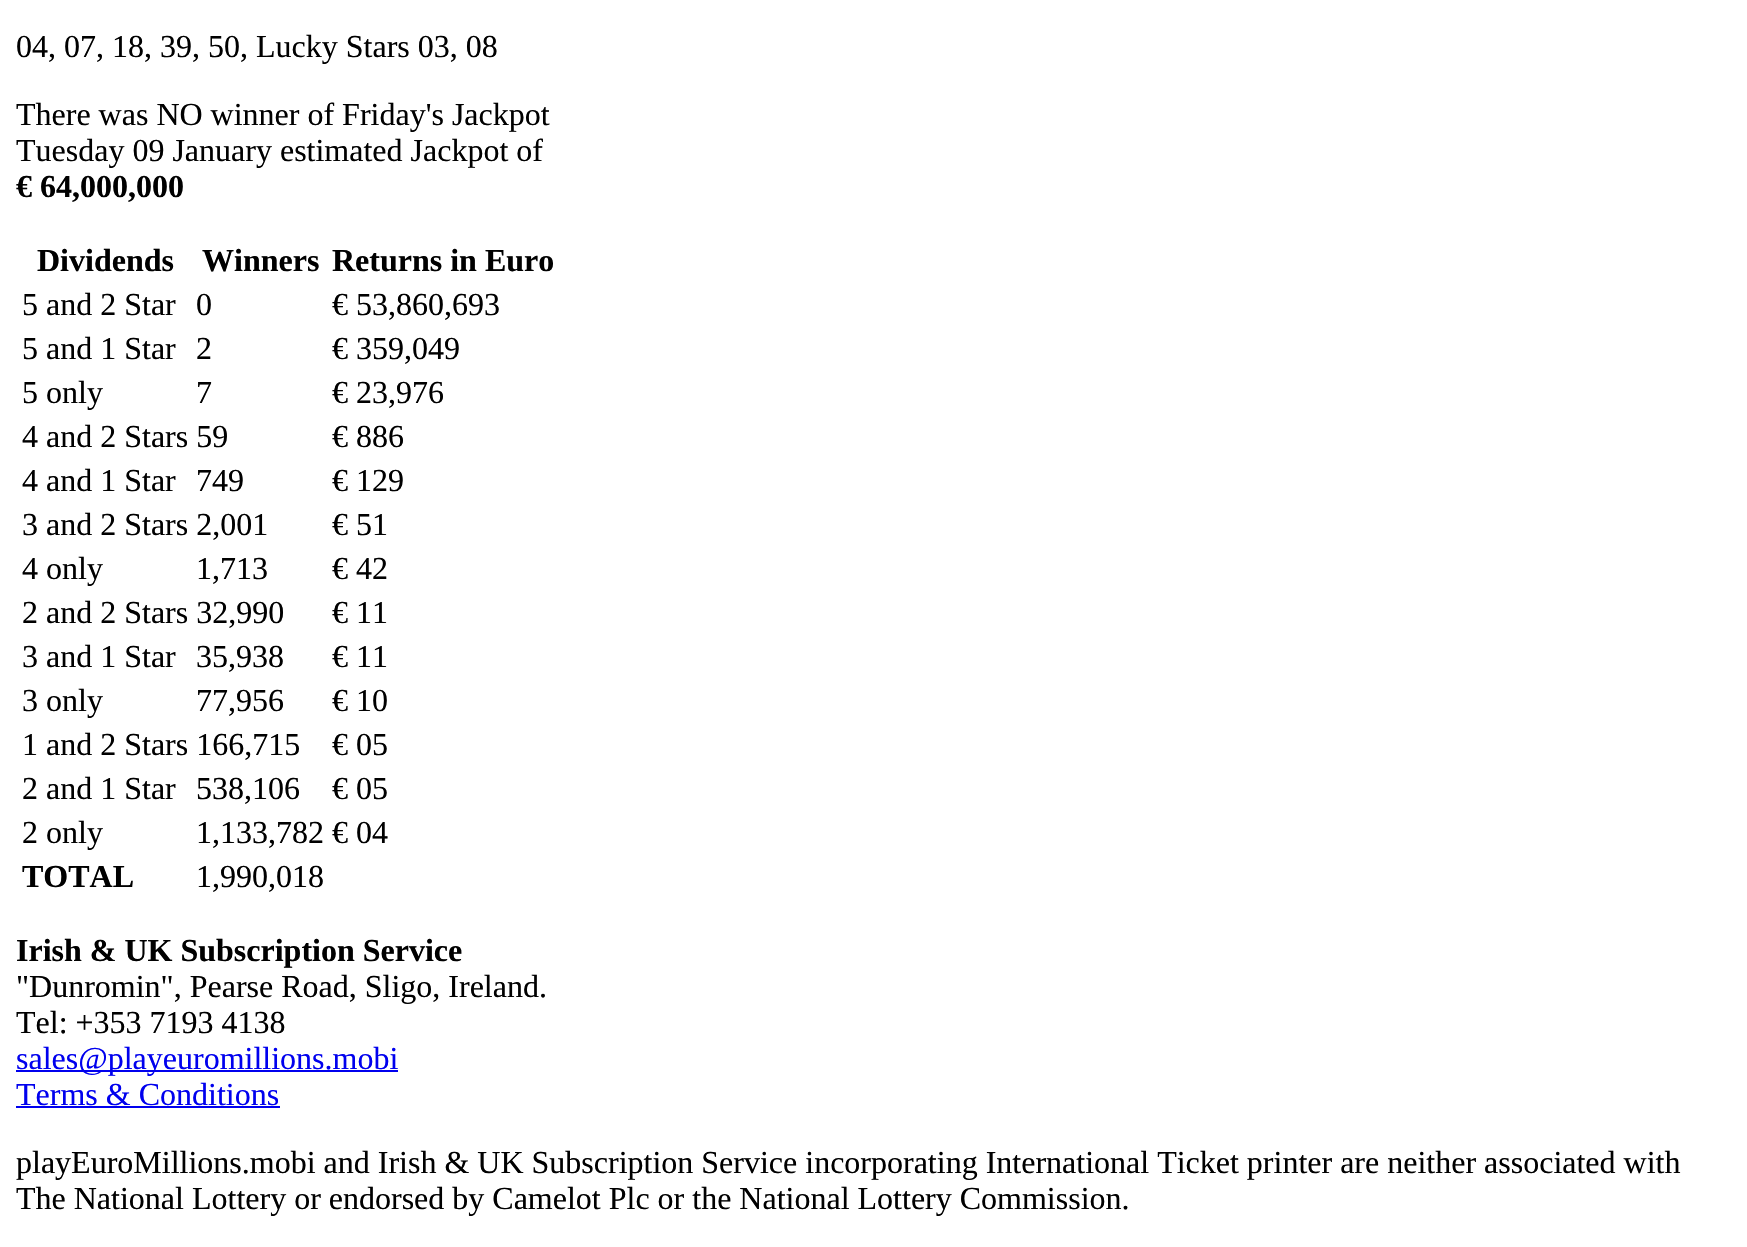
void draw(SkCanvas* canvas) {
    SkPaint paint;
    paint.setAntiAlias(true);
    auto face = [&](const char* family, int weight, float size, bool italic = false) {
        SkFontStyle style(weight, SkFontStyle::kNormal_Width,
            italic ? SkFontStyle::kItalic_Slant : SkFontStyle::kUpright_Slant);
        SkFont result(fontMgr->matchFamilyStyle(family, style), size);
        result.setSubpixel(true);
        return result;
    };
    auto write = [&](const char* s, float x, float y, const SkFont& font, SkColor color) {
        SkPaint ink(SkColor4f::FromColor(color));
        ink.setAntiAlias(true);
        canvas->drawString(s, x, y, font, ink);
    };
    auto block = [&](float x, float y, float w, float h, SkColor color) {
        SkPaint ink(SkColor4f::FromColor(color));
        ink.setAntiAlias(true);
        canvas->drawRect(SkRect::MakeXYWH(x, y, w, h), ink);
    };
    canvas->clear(SK_ColorWHITE);
    auto kFont1 = face("Liberation Serif", 400, 32);
    write("04, 07, 18, 39, 50, Lucky Stars 03, 08", 16, 57, kFont1, SK_ColorBLACK);
    write("There was NO winner of Friday's Jackpot", 16, 125, kFont1, SK_ColorBLACK);
    write("Tuesday 09 January estimated Jackpot of", 16, 161, kFont1, SK_ColorBLACK);
    auto kFont2 = face("Liberation Serif", 700, 32);
    write("€ 64,000,000", 16, 197, kFont2, SK_ColorBLACK);
    write("Dividends", 37, 271, kFont2, SK_ColorBLACK);
    write("Winners", 202, 271, kFont2, SK_ColorBLACK);
    write("Returns in Euro", 332, 271, kFont2, SK_ColorBLACK);
    write("5 and 2 Star", 22, 315, kFont1, SK_ColorBLACK);
    write("0", 196, 315, kFont1, SK_ColorBLACK);
    write("€ 53,860,693", 332, 315, kFont1, SK_ColorBLACK);
    write("5 and 1 Star", 22, 359, kFont1, SK_ColorBLACK);
    write("2", 196, 359, kFont1, SK_ColorBLACK);
    write("€ 359,049", 332, 359, kFont1, SK_ColorBLACK);
    write("5 only", 22, 403, kFont1, SK_ColorBLACK);
    write("7", 196, 403, kFont1, SK_ColorBLACK);
    write("€ 23,976", 332, 403, kFont1, SK_ColorBLACK);
    write("4 and 2 Stars 59", 22, 447, kFont1, SK_ColorBLACK);
    write("€ 886", 332, 447, kFont1, SK_ColorBLACK);
    write("4 and 1 Star", 22, 491, kFont1, SK_ColorBLACK);
    write("749", 196, 491, kFont1, SK_ColorBLACK);
    write("€ 129", 332, 491, kFont1, SK_ColorBLACK);
    write("3 and 2 Stars 2,001", 22, 535, kFont1, SK_ColorBLACK);
    write("€ 51", 332, 535, kFont1, SK_ColorBLACK);
    write("4 only", 22, 579, kFont1, SK_ColorBLACK);
    write("1,713", 196, 579, kFont1, SK_ColorBLACK);
    write("€ 42", 332, 579, kFont1, SK_ColorBLACK);
    write("2 and 2 Stars 32,990", 22, 623, kFont1, SK_ColorBLACK);
    write("€ 11", 332, 623, kFont1, SK_ColorBLACK);
    write("3 and 1 Star", 22, 667, kFont1, SK_ColorBLACK);
    write("35,938", 196, 667, kFont1, SK_ColorBLACK);
    write("€ 11", 332, 667, kFont1, SK_ColorBLACK);
    write("3 only", 22, 711, kFont1, SK_ColorBLACK);
    write("77,956", 196, 711, kFont1, SK_ColorBLACK);
    write("€ 10", 332, 711, kFont1, SK_ColorBLACK);
    write("1 and 2 Stars 166,715", 22, 755, kFont1, SK_ColorBLACK);
    write("€ 05", 332, 755, kFont1, SK_ColorBLACK);
    write("2 and 1 Star", 22, 799, kFont1, SK_ColorBLACK);
    write("538,106", 196, 799, kFont1, SK_ColorBLACK);
    write("€ 05", 332, 799, kFont1, SK_ColorBLACK);
    write("2 only", 22, 843, kFont1, SK_ColorBLACK);
    write("1,133,782 € 04", 196, 843, kFont1, SK_ColorBLACK);
    write("TOTAL", 22, 887, kFont2, SK_ColorBLACK);
    write("1,990,018", 196, 887, kFont1, SK_ColorBLACK);
    write("Irish & UK Subscription Service", 16, 961, kFont2, SK_ColorBLACK);
    write("\"Dunromin\", Pearse Road, Sligo, Ireland.", 16, 997, kFont1, SK_ColorBLACK);
    write("Tel: +353 7193 4138", 16, 1033, kFont1, SK_ColorBLACK);
    block(16, 1070, 382, 2, SkColorSetRGB(0, 0, 238));
    write("sales@playeuromillions.mobi", 16, 1069, kFont1, SkColorSetRGB(0, 0, 238));
    write("Terms & Conditions", 16, 1105, kFont1, SkColorSetRGB(0, 0, 238));
    block(16, 1106, 264, 2, SkColorSetRGB(0, 0, 238));
    write("playEuroMillions.mobi and Irish & UK Subscription Service incorporating International Ticket printer are neither associated with", 16, 1173, kFont1, SK_ColorBLACK);
    write("The National Lottery or endorsed by Camelot Plc or the National Lottery Commission.", 16, 1209, kFont1, SK_ColorBLACK);
}
